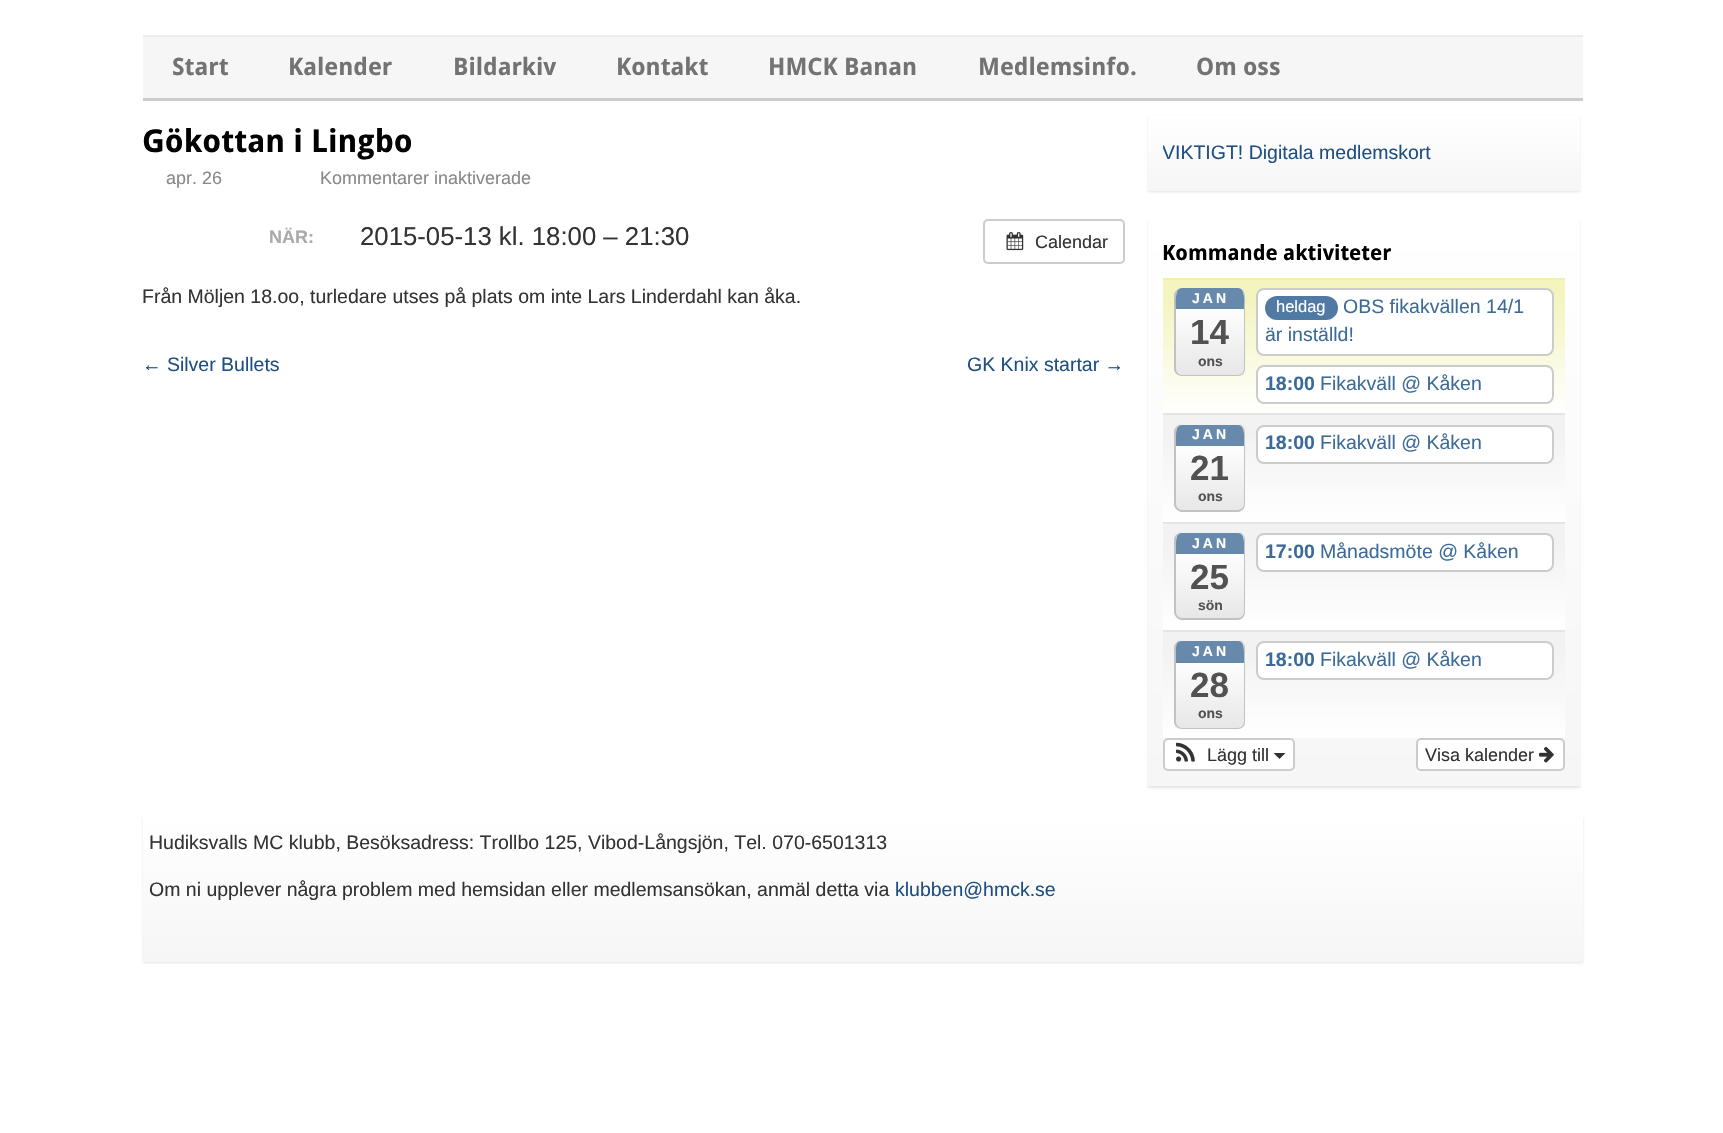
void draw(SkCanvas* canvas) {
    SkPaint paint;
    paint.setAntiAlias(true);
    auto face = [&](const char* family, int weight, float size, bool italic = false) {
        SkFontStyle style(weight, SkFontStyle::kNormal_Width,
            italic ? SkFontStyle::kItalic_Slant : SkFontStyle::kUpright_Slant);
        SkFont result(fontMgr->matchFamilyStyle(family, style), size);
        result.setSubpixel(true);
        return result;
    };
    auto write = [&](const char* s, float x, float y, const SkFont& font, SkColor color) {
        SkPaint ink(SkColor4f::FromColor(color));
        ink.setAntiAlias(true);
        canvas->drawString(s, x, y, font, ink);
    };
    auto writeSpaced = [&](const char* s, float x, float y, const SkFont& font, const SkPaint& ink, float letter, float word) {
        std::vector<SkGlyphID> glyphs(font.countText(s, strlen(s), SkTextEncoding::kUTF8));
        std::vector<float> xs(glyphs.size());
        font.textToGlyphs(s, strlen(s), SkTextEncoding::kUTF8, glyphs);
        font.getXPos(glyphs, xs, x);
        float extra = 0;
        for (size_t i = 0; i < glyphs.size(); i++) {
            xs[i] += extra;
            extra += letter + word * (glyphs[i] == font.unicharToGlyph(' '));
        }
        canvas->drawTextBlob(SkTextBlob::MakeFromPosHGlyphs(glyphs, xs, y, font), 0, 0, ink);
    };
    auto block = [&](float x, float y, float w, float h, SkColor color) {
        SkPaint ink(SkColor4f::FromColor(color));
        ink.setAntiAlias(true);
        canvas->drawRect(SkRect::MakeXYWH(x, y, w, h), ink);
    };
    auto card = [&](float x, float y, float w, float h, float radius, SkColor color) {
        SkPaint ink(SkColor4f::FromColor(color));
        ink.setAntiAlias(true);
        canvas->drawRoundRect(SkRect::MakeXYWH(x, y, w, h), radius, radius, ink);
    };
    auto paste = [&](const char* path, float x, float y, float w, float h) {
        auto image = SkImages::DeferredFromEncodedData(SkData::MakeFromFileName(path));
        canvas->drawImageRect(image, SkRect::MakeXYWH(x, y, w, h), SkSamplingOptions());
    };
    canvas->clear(SK_ColorWHITE);
    block(143, 37, 1440, 61, SkColorSetRGB(246, 246, 246));
    block(143, 35, 1440, 2, SkColorSetRGB(236, 236, 236));
    block(143, 98, 1440, 3, SkColorSetRGB(204, 204, 204));
    auto kFont1 = face("Droid Sans", 700, 24);
    write("Start", 172, 75, kFont1, SkColorSetRGB(115, 115, 115));
    write("Kalender", 288, 75, kFont1, SkColorSetRGB(115, 115, 115));
    write("Bildarkiv", 453, 75, kFont1, SkColorSetRGB(115, 115, 115));
    write("Kontakt", 616, 75, kFont1, SkColorSetRGB(115, 115, 115));
    write("HMCK Banan", 768, 75, kFont1, SkColorSetRGB(115, 115, 115));
    write("Medlemsinfo.", 978, 75, kFont1, SkColorSetRGB(115, 115, 115));
    write("Om oss", 1196, 75, kFont1, SkColorSetRGB(115, 115, 115));
    auto kFont2 = face("Droid Sans", 700, 31.5f);
    write("Gökottan i Lingbo", 142, 152, kFont2, SK_ColorBLACK);
    auto kFont3 = face("Liberation Sans", 400, 18);
    write("apr. 26", 166, 184, kFont3, SkColorSetRGB(136, 136, 136));
    write("Kommentarer inaktiverade", 320, 184, kFont3, SkColorSetRGB(136, 136, 136));
    auto kFont4 = face("Liberation Sans", 700, 18);
    write("NÄR:", 269, 243, kFont4, SkColorSetRGB(170, 170, 170));
    auto kFont5 = face("Liberation Sans", 400, 25.75f);
    write("2015-05-13 kl. 18:00 – 21:30", 360, 245, kFont5, SkColorSetRGB(51, 51, 51));
    paint.setStyle(SkPaint::kStroke_Style);
    paint.setStrokeWidth(2);
    paint.setColor(SkColorSetRGB(204, 204, 204));
    canvas->drawRoundRect(SkRect::MakeXYWH(984, 220, 140, 43), 4, 4, paint);
    paste("pic1.png", 1006, 232, 18, 19);
    write("Calendar", 1035, 248, kFont3, SkColorSetRGB(51, 51, 51));
    auto kFont6 = face("Liberation Sans", 400, 19.5f);
    write("Från Möljen 18.oo, turledare utses på plats om inte Lars Linderdahl kan åka.", 142, 303, kFont6, SkColorSetRGB(51, 51, 51));
    write("← Silver Bullets", 142, 371, kFont6, SkColorSetRGB(31, 79, 130));
    write("GK Knix startar →", 967, 371, kFont6, SkColorSetRGB(31, 79, 130));
    paint.setStyle(SkPaint::kFill_Style);
    paint.setColor(SkColorSetARGB(26, 0, 0, 0));
    paint.setMaskFilter(SkMaskFilter::MakeBlur(kNormal_SkBlurStyle, 1));
    canvas->drawRect(SkRect::MakeXYWH(1148, 117, 432, 75), paint);
    paint.setMaskFilter(nullptr);
    {
        const SkColor colors[] = {SK_ColorWHITE, SkColorSetRGB(246, 246, 246)};
        const float stops[] = {0, 1};
        const SkPoint ends[] = {{1364, 115}, {1364, 191}};
        paint.setShader(SkGradientShader::MakeLinear(ends, colors, stops, 2, SkTileMode::kClamp));
        paint.setAlpha(255);
    }
    canvas->drawRect(SkRect::MakeXYWH(1148, 116, 432, 75), paint);
    canvas->save();
    canvas->clipRect(SkRect::MakeXYWH(1163, 131, 402, 45));
    write("VIKTIGT! Digitala medlemskort", 1162, 159, kFont6, SkColorSetRGB(31, 79, 130));
    canvas->restore();
    paint.setShader(nullptr);
    paint.setColor(SkColorSetARGB(26, 0, 0, 0));
    paint.setMaskFilter(SkMaskFilter::MakeBlur(kNormal_SkBlurStyle, 1));
    canvas->drawRect(SkRect::MakeXYWH(1148, 222, 432, 566), paint);
    paint.setMaskFilter(nullptr);
    {
        const SkColor colors[] = {SK_ColorWHITE, SkColorSetRGB(246, 246, 246)};
        const float stops[] = {0, 1};
        const SkPoint ends[] = {{1364, 220}, {1364, 786}};
        paint.setShader(SkGradientShader::MakeLinear(ends, colors, stops, 2, SkTileMode::kClamp));
        paint.setAlpha(255);
    }
    canvas->drawRect(SkRect::MakeXYWH(1148, 221, 432, 565), paint);
    auto kFont7 = face("Droid Sans", 700, 21);
    write("Kommande aktiviteter", 1162, 260, kFont7, SK_ColorBLACK);
    {
        const SkColor colors[] = {SkColorSetRGB(244, 244, 191), SkColorSetRGB(244, 244, 191), SK_ColorWHITE};
        const float stops[] = {0, 0.15f, 1};
        const SkPoint ends[] = {{1364, 279}, {1364, 413}};
        paint.setShader(SkGradientShader::MakeLinear(ends, colors, stops, 3, SkTileMode::kClamp));
        paint.setAlpha(255);
    }
    canvas->drawRect(SkRect::MakeXYWH(1163, 280, 402, 133), paint);
    block(1163, 278, 402, 2, SkColorSetRGB(240, 240, 169));
    canvas->save();
    canvas->clipPath(SkPathBuilder().moveTo(1183, 288).lineTo(1237, 288).cubicTo(1241.5f, 288, 1245, 291.5f, 1245, 296).lineTo(1245, 369).cubicTo(1245, 373.5f, 1241.5f, 377, 1237, 377).lineTo(1183, 377).cubicTo(1178.5f, 377, 1175, 373.5f, 1175, 369).lineTo(1175, 296).cubicTo(1175, 291.5f, 1178.5f, 288, 1183, 288).close().detach(), true);
    {
        const SkColor colors[] = {SK_ColorWHITE, SK_ColorWHITE, SkColorSetRGB(231, 231, 231)};
        const float stops[] = {0, 0.2f, 1};
        const SkPoint ends[] = {{1210, 288}, {1210, 375}};
        paint.setShader(SkGradientShader::MakeLinear(ends, colors, stops, 3, SkTileMode::kClamp));
        paint.setAlpha(255);
    }
    canvas->drawRect(SkRect::MakeXYWH(1176, 288, 68, 87), paint);
    canvas->restore();
    paint.setShader(nullptr);
    paint.setColor(SkColorSetRGB(194, 194, 194));
    canvas->drawPath(SkPathBuilder(SkPathFillType::kEvenOdd).moveTo(1182, 288).lineTo(1238, 288).cubicTo(1242, 288, 1245, 291, 1245, 296).lineTo(1245, 369).cubicTo(1245, 373, 1242, 376, 1238, 376).lineTo(1182, 376).cubicTo(1178, 376, 1174, 373, 1174, 369).lineTo(1174, 296).cubicTo(1174, 291, 1178, 288, 1182, 288).close().moveTo(1182, 288).lineTo(1238, 288).cubicTo(1241, 288, 1244, 291, 1244, 296).lineTo(1244, 369).cubicTo(1244, 372, 1241, 375, 1238, 375).lineTo(1182, 375).cubicTo(1179, 375, 1176, 372, 1176, 369).lineTo(1176, 296).cubicTo(1176, 291, 1179, 288, 1182, 288).close().detach(), paint);
    paint.setColor(SkColorSetRGB(102, 137, 172));
    canvas->drawPath(SkPathBuilder().moveTo(1182, 288).cubicTo(1174, 288, 1176, 304, 1176, 309).lineTo(1244, 309).cubicTo(1244, 304, 1246, 288, 1238, 288).close().detach(), paint);
    auto kFont8 = face("Liberation Sans", 700, 14);
    paint.setColor(SK_ColorWHITE);
    writeSpaced("JAN", 1192, 303, kFont8, paint, 3, 0);
    auto kFont9 = face("Liberation Sans", 700, 35);
    write("14", 1190, 344, kFont9, SkColorSetRGB(82, 82, 82));
    write("ons", 1198, 366, kFont8, SkColorSetRGB(82, 82, 82));
    canvas->drawRoundRect(SkRect::MakeXYWH(1257, 289, 296, 66), 7, 7, paint);
    paint.setStyle(SkPaint::kStroke_Style);
    paint.setColor(SkColorSetRGB(204, 204, 204));
    canvas->drawRoundRect(SkRect::MakeXYWH(1257, 289, 296, 66), 7, 7, paint);
    card(1265, 296, 73, 24, 12, SkColorSetRGB(80, 122, 163));
    auto kFont10 = face("Liberation Sans", 400, 16.5f);
    write("heldag", 1276, 312, kFont10, SK_ColorWHITE);
    write("OBS fikakvällen 14/1", 1343, 313, kFont6, SkColorSetRGB(61, 107, 153));
    write("är inställd!", 1265, 341, kFont6, SkColorSetRGB(61, 107, 153));
    paint.setStyle(SkPaint::kFill_Style);
    paint.setColor(SK_ColorWHITE);
    canvas->drawRoundRect(SkRect::MakeXYWH(1257, 366, 296, 37), 7, 7, paint);
    paint.setStyle(SkPaint::kStroke_Style);
    paint.setColor(SkColorSetRGB(204, 204, 204));
    canvas->drawRoundRect(SkRect::MakeXYWH(1257, 366, 296, 37), 7, 7, paint);
    auto kFont11 = face("Liberation Sans", 700, 19.5f);
    write("18:00", 1265, 390, kFont11, SkColorSetRGB(61, 107, 153));
    write("Fikakväll @ Kåken", 1320, 390, kFont6, SkColorSetRGB(61, 107, 153));
    paint.setStyle(SkPaint::kFill_Style);
    {
        const SkColor colors[] = {SkColorSetRGB(242, 242, 242), SkColorSetRGB(242, 242, 242), SK_ColorWHITE};
        const float stops[] = {0, 0.18f, 1};
        const SkPoint ends[] = {{1364, 414}, {1364, 522}};
        paint.setShader(SkGradientShader::MakeLinear(ends, colors, stops, 3, SkTileMode::kClamp));
        paint.setAlpha(255);
    }
    canvas->drawRect(SkRect::MakeXYWH(1163, 415, 402, 107), paint);
    block(1163, 413, 402, 2, SkColorSetRGB(229, 229, 229));
    canvas->save();
    canvas->clipPath(SkPathBuilder().moveTo(1183, 425).lineTo(1237, 425).cubicTo(1241.5f, 425, 1245, 428.5f, 1245, 433).lineTo(1245, 504).cubicTo(1245, 508.5f, 1241.5f, 512, 1237, 512).lineTo(1183, 512).cubicTo(1178.5f, 512, 1175, 508.5f, 1175, 504).lineTo(1175, 433).cubicTo(1175, 428.5f, 1178.5f, 425, 1183, 425).close().detach(), true);
    {
        const SkColor colors[] = {SK_ColorWHITE, SK_ColorWHITE, SkColorSetRGB(231, 231, 231)};
        const float stops[] = {0, 0.21f, 1};
        const SkPoint ends[] = {{1210, 425}, {1210, 510}};
        paint.setShader(SkGradientShader::MakeLinear(ends, colors, stops, 3, SkTileMode::kClamp));
        paint.setAlpha(255);
    }
    canvas->drawRect(SkRect::MakeXYWH(1176, 425, 68, 85), paint);
    canvas->restore();
    paint.setShader(nullptr);
    paint.setColor(SkColorSetRGB(194, 194, 194));
    canvas->drawPath(SkPathBuilder(SkPathFillType::kEvenOdd).moveTo(1182, 424).lineTo(1238, 424).cubicTo(1242, 424, 1245, 428, 1245, 432).lineTo(1245, 504).cubicTo(1245, 508, 1242, 512, 1238, 512).lineTo(1182, 512).cubicTo(1178, 512, 1174, 508, 1174, 504).lineTo(1174, 432).cubicTo(1174, 428, 1178, 424, 1182, 424).close().moveTo(1182, 424).lineTo(1238, 424).cubicTo(1241, 424, 1244, 428, 1244, 432).lineTo(1244, 504).cubicTo(1244, 507, 1241, 510, 1238, 510).lineTo(1182, 510).cubicTo(1179, 510, 1176, 507, 1176, 504).lineTo(1176, 432).cubicTo(1176, 428, 1179, 424, 1182, 424).close().detach(), paint);
    paint.setColor(SkColorSetRGB(102, 137, 172));
    canvas->drawPath(SkPathBuilder().moveTo(1182, 425).cubicTo(1176, 425, 1176, 432, 1176, 437).lineTo(1176, 446).lineTo(1244, 446).lineTo(1244, 437).cubicTo(1244, 433, 1244, 425, 1238, 425).close().detach(), paint);
    paint.setColor(SK_ColorWHITE);
    writeSpaced("JAN", 1192, 439, kFont8, paint, 3, 0);
    write("21", 1190, 480, kFont9, SkColorSetRGB(82, 82, 82));
    write("ons", 1198, 501, kFont8, SkColorSetRGB(82, 82, 82));
    canvas->drawRoundRect(SkRect::MakeXYWH(1257, 426, 296, 37), 7, 7, paint);
    paint.setStyle(SkPaint::kStroke_Style);
    paint.setColor(SkColorSetRGB(204, 204, 204));
    canvas->drawRoundRect(SkRect::MakeXYWH(1257, 426, 296, 37), 7, 7, paint);
    write("18:00", 1265, 449, kFont11, SkColorSetRGB(61, 107, 153));
    write("Fikakväll @ Kåken", 1320, 449, kFont6, SkColorSetRGB(61, 107, 153));
    paint.setStyle(SkPaint::kFill_Style);
    {
        const SkColor colors[] = {SkColorSetRGB(242, 242, 242), SkColorSetRGB(242, 242, 242), SK_ColorWHITE};
        const float stops[] = {0, 0.18f, 1};
        const SkPoint ends[] = {{1364, 524}, {1364, 630}};
        paint.setShader(SkGradientShader::MakeLinear(ends, colors, stops, 3, SkTileMode::kClamp));
        paint.setAlpha(255);
    }
    canvas->drawRect(SkRect::MakeXYWH(1163, 524, 402, 106), paint);
    block(1163, 522, 402, 2, SkColorSetRGB(229, 229, 229));
    canvas->save();
    canvas->clipPath(SkPathBuilder().moveTo(1183, 533).lineTo(1237, 533).cubicTo(1241.5f, 533, 1245, 536.5f, 1245, 541).lineTo(1245, 612).cubicTo(1245, 616.5f, 1241.5f, 620, 1237, 620).lineTo(1183, 620).cubicTo(1178.5f, 620, 1175, 616.5f, 1175, 612).lineTo(1175, 541).cubicTo(1175, 536.5f, 1178.5f, 533, 1183, 533).close().detach(), true);
    {
        const SkColor colors[] = {SK_ColorWHITE, SK_ColorWHITE, SkColorSetRGB(231, 231, 231)};
        const float stops[] = {0, 0.21f, 1};
        const SkPoint ends[] = {{1210, 533}, {1210, 618}};
        paint.setShader(SkGradientShader::MakeLinear(ends, colors, stops, 3, SkTileMode::kClamp));
        paint.setAlpha(255);
    }
    canvas->drawRect(SkRect::MakeXYWH(1176, 533, 68, 85), paint);
    canvas->restore();
    paint.setShader(nullptr);
    paint.setColor(SkColorSetRGB(194, 194, 194));
    canvas->drawPath(SkPathBuilder(SkPathFillType::kEvenOdd).moveTo(1182, 532).lineTo(1238, 532).cubicTo(1242, 532, 1245, 536, 1245, 540).lineTo(1245, 612).cubicTo(1245, 616, 1242, 620, 1238, 620).lineTo(1182, 620).cubicTo(1178, 620, 1174, 616, 1174, 612).lineTo(1174, 540).cubicTo(1174, 536, 1178, 532, 1182, 532).close().moveTo(1182, 532).lineTo(1238, 532).cubicTo(1241, 532, 1244, 536, 1244, 540).lineTo(1244, 612).cubicTo(1244, 615, 1241, 618, 1238, 618).lineTo(1182, 618).cubicTo(1179, 618, 1176, 615, 1176, 612).lineTo(1176, 540).cubicTo(1176, 536, 1179, 532, 1182, 532).close().detach(), paint);
    paint.setColor(SkColorSetRGB(102, 137, 172));
    canvas->drawPath(SkPathBuilder().moveTo(1182, 533).cubicTo(1176, 533, 1176, 540, 1176, 545).lineTo(1176, 554).lineTo(1244, 554).lineTo(1244, 545).cubicTo(1244, 541, 1244, 533, 1238, 533).close().detach(), paint);
    paint.setColor(SK_ColorWHITE);
    writeSpaced("JAN", 1192, 548, kFont8, paint, 3, 0);
    write("25", 1190, 589, kFont9, SkColorSetRGB(82, 82, 82));
    write("sön", 1198, 610, kFont8, SkColorSetRGB(82, 82, 82));
    canvas->drawRoundRect(SkRect::MakeXYWH(1257, 534, 296, 37), 7, 7, paint);
    paint.setStyle(SkPaint::kStroke_Style);
    paint.setColor(SkColorSetRGB(204, 204, 204));
    canvas->drawRoundRect(SkRect::MakeXYWH(1257, 534, 296, 37), 7, 7, paint);
    write("17:00", 1265, 558, kFont11, SkColorSetRGB(61, 107, 153));
    write("Månadsmöte @ Kåken", 1320, 558, kFont6, SkColorSetRGB(61, 107, 153));
    paint.setStyle(SkPaint::kFill_Style);
    {
        const SkColor colors[] = {SkColorSetRGB(242, 242, 242), SkColorSetRGB(242, 242, 242), SK_ColorWHITE};
        const float stops[] = {0, 0.18f, 1};
        const SkPoint ends[] = {{1364, 632}, {1364, 738}};
        paint.setShader(SkGradientShader::MakeLinear(ends, colors, stops, 3, SkTileMode::kClamp));
        paint.setAlpha(255);
    }
    canvas->drawRect(SkRect::MakeXYWH(1163, 632, 402, 106), paint);
    block(1163, 630, 402, 2, SkColorSetRGB(229, 229, 229));
    canvas->save();
    canvas->clipPath(SkPathBuilder().moveTo(1183, 641).lineTo(1237, 641).cubicTo(1241.5f, 641, 1245, 644.5f, 1245, 649).lineTo(1245, 721).cubicTo(1245, 725.5f, 1241.5f, 729, 1237, 729).lineTo(1183, 729).cubicTo(1178.5f, 729, 1175, 725.5f, 1175, 721).lineTo(1175, 649).cubicTo(1175, 644.5f, 1178.5f, 641, 1183, 641).close().detach(), true);
    {
        const SkColor colors[] = {SK_ColorWHITE, SK_ColorWHITE, SkColorSetRGB(231, 231, 231)};
        const float stops[] = {0, 0.2f, 1};
        const SkPoint ends[] = {{1210, 641}, {1210, 728}};
        paint.setShader(SkGradientShader::MakeLinear(ends, colors, stops, 3, SkTileMode::kClamp));
        paint.setAlpha(255);
    }
    canvas->drawRect(SkRect::MakeXYWH(1176, 641, 68, 87), paint);
    canvas->restore();
    paint.setShader(nullptr);
    paint.setColor(SkColorSetRGB(194, 194, 194));
    canvas->drawPath(SkPathBuilder(SkPathFillType::kEvenOdd).moveTo(1182, 640).lineTo(1238, 640).cubicTo(1242, 640, 1245, 644, 1245, 648).lineTo(1245, 722).cubicTo(1245, 726, 1242, 729, 1238, 729).lineTo(1182, 729).cubicTo(1178, 729, 1174, 726, 1174, 722).lineTo(1174, 648).cubicTo(1174, 644, 1178, 640, 1182, 640).close().moveTo(1182, 640).lineTo(1238, 640).cubicTo(1241, 640, 1244, 644, 1244, 648).lineTo(1244, 722).cubicTo(1244, 725, 1241, 728, 1238, 728).lineTo(1182, 728).cubicTo(1179, 728, 1176, 725, 1176, 722).lineTo(1176, 648).cubicTo(1176, 644, 1179, 640, 1182, 640).close().detach(), paint);
    paint.setColor(SkColorSetRGB(102, 137, 172));
    canvas->drawPath(SkPathBuilder().moveTo(1182, 641).cubicTo(1175, 641, 1176, 648, 1176, 653).lineTo(1176, 663).lineTo(1244, 663).lineTo(1244, 653).cubicTo(1244, 649, 1244, 641, 1238, 641).close().detach(), paint);
    paint.setColor(SK_ColorWHITE);
    writeSpaced("JAN", 1192, 656, kFont8, paint, 3, 0);
    write("28", 1190, 697, kFont9, SkColorSetRGB(82, 82, 82));
    write("ons", 1198, 718, kFont8, SkColorSetRGB(82, 82, 82));
    canvas->drawRoundRect(SkRect::MakeXYWH(1257, 642, 296, 37), 7, 7, paint);
    paint.setStyle(SkPaint::kStroke_Style);
    paint.setColor(SkColorSetRGB(204, 204, 204));
    canvas->drawRoundRect(SkRect::MakeXYWH(1257, 642, 296, 37), 7, 7, paint);
    write("18:00", 1265, 666, kFont11, SkColorSetRGB(61, 107, 153));
    write("Fikakväll @ Kåken", 1320, 666, kFont6, SkColorSetRGB(61, 107, 153));
    paint.setStyle(SkPaint::kFill_Style);
    paint.setColor(SK_ColorWHITE);
    canvas->drawRoundRect(SkRect::MakeXYWH(1164, 739, 130, 31), 4, 4, paint);
    paint.setStyle(SkPaint::kStroke_Style);
    paint.setColor(SkColorSetRGB(204, 204, 204));
    canvas->drawRoundRect(SkRect::MakeXYWH(1164, 739, 130, 31), 4, 4, paint);
    paste("pic2.png", 1176, 742, 19, 20);
    write("Lägg till", 1207, 761, kFont3, SkColorSetRGB(51, 51, 51));
    paint.setStyle(SkPaint::kFill_Style);
    paint.setColor(SkColorSetRGB(51, 51, 51));
    canvas->drawPath(SkPathBuilder().moveTo(1273.5f, 753).lineTo(1285.5f, 753).lineTo(1279.5f, 759).close().detach(), paint);
    paint.setColor(SK_ColorWHITE);
    canvas->drawRoundRect(SkRect::MakeXYWH(1417, 739, 147, 31), 4, 4, paint);
    paint.setStyle(SkPaint::kStroke_Style);
    paint.setColor(SkColorSetRGB(204, 204, 204));
    canvas->drawRoundRect(SkRect::MakeXYWH(1417, 739, 147, 31), 4, 4, paint);
    write("Visa kalender", 1425, 761, kFont3, SkColorSetRGB(51, 51, 51));
    paste("pic3.png", 1539, 746, 15, 17);
    paint.setStyle(SkPaint::kFill_Style);
    paint.setColor(SkColorSetARGB(26, 0, 0, 0));
    paint.setMaskFilter(SkMaskFilter::MakeBlur(kNormal_SkBlurStyle, 1));
    canvas->drawRect(SkRect::MakeXYWH(143, 818, 1440, 145), paint);
    paint.setMaskFilter(nullptr);
    {
        const SkColor colors[] = {SK_ColorWHITE, SkColorSetRGB(246, 246, 246)};
        const float stops[] = {0, 1};
        const SkPoint ends[] = {{863, 816}, {863, 962}};
        paint.setShader(SkGradientShader::MakeLinear(ends, colors, stops, 2, SkTileMode::kClamp));
        paint.setAlpha(255);
    }
    canvas->drawRect(SkRect::MakeXYWH(143, 817, 1440, 145), paint);
    write("Hudiksvalls MC klubb, Besöksadress: Trollbo 125, Vibod-Långsjön, Tel. 070-6501313", 149, 849, kFont6, SkColorSetRGB(51, 51, 51));
    write("Om ni upplever några problem med hemsidan eller medlemsansökan, anmäl detta via", 149, 896, kFont6, SkColorSetRGB(51, 51, 51));
    write("klubben@hmck.se", 895, 896, kFont6, SkColorSetRGB(31, 79, 130));
}
